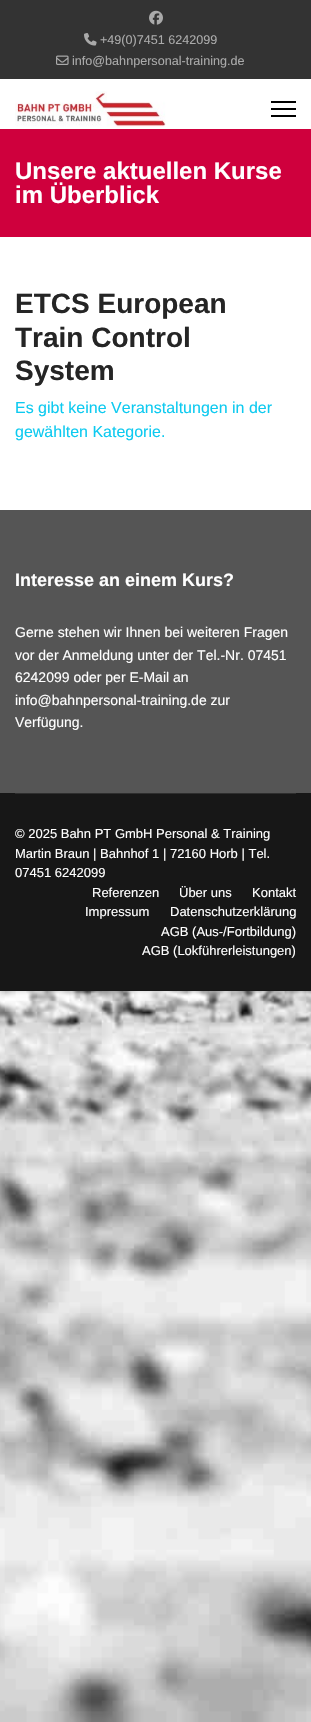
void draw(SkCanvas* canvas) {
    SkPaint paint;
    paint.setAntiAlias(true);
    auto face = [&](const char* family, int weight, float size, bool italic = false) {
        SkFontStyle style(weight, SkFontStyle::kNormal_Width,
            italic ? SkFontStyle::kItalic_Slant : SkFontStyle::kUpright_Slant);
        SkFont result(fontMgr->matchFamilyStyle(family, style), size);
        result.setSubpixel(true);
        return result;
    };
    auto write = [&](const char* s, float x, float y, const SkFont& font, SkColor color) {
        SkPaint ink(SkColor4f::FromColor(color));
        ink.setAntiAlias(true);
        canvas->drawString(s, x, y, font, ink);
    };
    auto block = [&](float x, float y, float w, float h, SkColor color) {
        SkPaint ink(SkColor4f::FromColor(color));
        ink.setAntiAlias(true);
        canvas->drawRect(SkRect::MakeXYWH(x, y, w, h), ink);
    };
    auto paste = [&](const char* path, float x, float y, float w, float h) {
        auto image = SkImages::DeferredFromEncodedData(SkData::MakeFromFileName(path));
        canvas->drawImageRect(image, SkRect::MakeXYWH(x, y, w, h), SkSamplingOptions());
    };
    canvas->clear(SK_ColorWHITE);
    paste("pic1.png", 0, 991, 311, 731);
    paint.setColor(SkColorSetARGB(51, 0, 0, 0));
    paint.setMaskFilter(SkMaskFilter::MakeBlur(kNormal_SkBlurStyle, 2.5f));
    canvas->drawRect(SkRect::MakeXYWH(0, 0, 311, 991), paint);
    paint.setMaskFilter(nullptr);
    block(0, 79, 311, 431, SK_ColorWHITE);
    block(0, 0, 311, 79, SkColorSetRGB(51, 51, 51));
    paste("pic2.png", 149, 10, 14, 15);
    paste("pic3.png", 84, 33, 13, 13);
    auto kFont1 = face("Liberation Sans", 400, 12.6f);
    write("+49(0)7451 6242099", 100, 44, kFont1, SkColorSetRGB(170, 170, 170));
    paste("pic4.png", 56, 55, 13, 10);
    write("info@bahnpersonal-training.de", 72, 65, kFont1, SkColorSetRGB(170, 170, 170));
    paste("pic5.png", 15, 91, 151, 36);
    block(271, 101, 25, 2, SK_ColorBLACK);
    block(271, 108, 25, 2, SK_ColorBLACK);
    block(271, 115, 25, 2, SK_ColorBLACK);
    block(0, 129, 311, 108, SkColorSetRGB(207, 0, 61));
    auto kFont2 = face("Liberation Sans", 700, 24);
    write("Unsere aktuellen Kurse", 15, 179, kFont2, SK_ColorWHITE);
    write("im Überblick", 15, 203, kFont2, SK_ColorWHITE);
    auto kFont3 = face("Liberation Sans", 700, 28);
    write("ETCS European", 15, 313, kFont3, SkColorSetRGB(37, 37, 37));
    write("Train Control", 15, 347, kFont3, SkColorSetRGB(37, 37, 37));
    write("System", 15, 380, kFont3, SkColorSetRGB(37, 37, 37));
    auto kFont4 = face("Liberation Sans", 400, 16);
    write("Es gibt keine Veranstaltungen in der", 15, 413, kFont4, SkColorSetRGB(13, 202, 240));
    write("gewählten Kategorie.", 15, 437, kFont4, SkColorSetRGB(13, 202, 240));
    block(0, 510, 311, 283, SkColorSetRGB(85, 85, 85));
    auto kFont5 = face("Liberation Sans", 700, 18);
    write("Interesse an einem Kurs?", 15, 586, kFont5, SK_ColorWHITE);
    auto kFont6 = face("Liberation Sans", 400, 14);
    write("Gerne stehen wir Ihnen bei weiteren Fragen", 15, 637, kFont6, SK_ColorWHITE);
    write("vor der Anmeldung unter der Tel.-Nr. 07451", 15, 660, kFont6, SK_ColorWHITE);
    write("6242099 oder per E-Mail an", 15, 682, kFont6, SK_ColorWHITE);
    write("info@bahnpersonal-training.de zur", 15, 705, kFont6, SK_ColorWHITE);
    write("Verfügung.", 15, 727, kFont6, SK_ColorWHITE);
    block(0, 793, 311, 198, SkColorSetRGB(23, 23, 23));
    block(15, 793, 281, 1, SkColorSetRGB(46, 46, 46));
    auto kFont7 = face("Liberation Sans", 400, 13);
    write("© 2025 Bahn PT GmbH Personal & Training", 15, 838, kFont7, SK_ColorWHITE);
    write("Martin Braun | Bahnhof 1 | 72160 Horb | Tel.", 15, 858, kFont7, SK_ColorWHITE);
    write("07451 6242099", 15, 877, kFont7, SK_ColorWHITE);
    write("Referenzen", 92, 897, kFont7, SK_ColorWHITE);
    write("Über uns", 179, 897, kFont7, SK_ColorWHITE);
    write("Kontakt", 252, 897, kFont7, SK_ColorWHITE);
    write("Impressum", 85, 916, kFont7, SK_ColorWHITE);
    write("Datenschutzerklärung", 170, 916, kFont7, SK_ColorWHITE);
    write("AGB (Aus-/Fortbildung)", 161, 936, kFont7, SK_ColorWHITE);
    write("AGB (Lokführerleistungen)", 142, 955, kFont7, SK_ColorWHITE);
}
